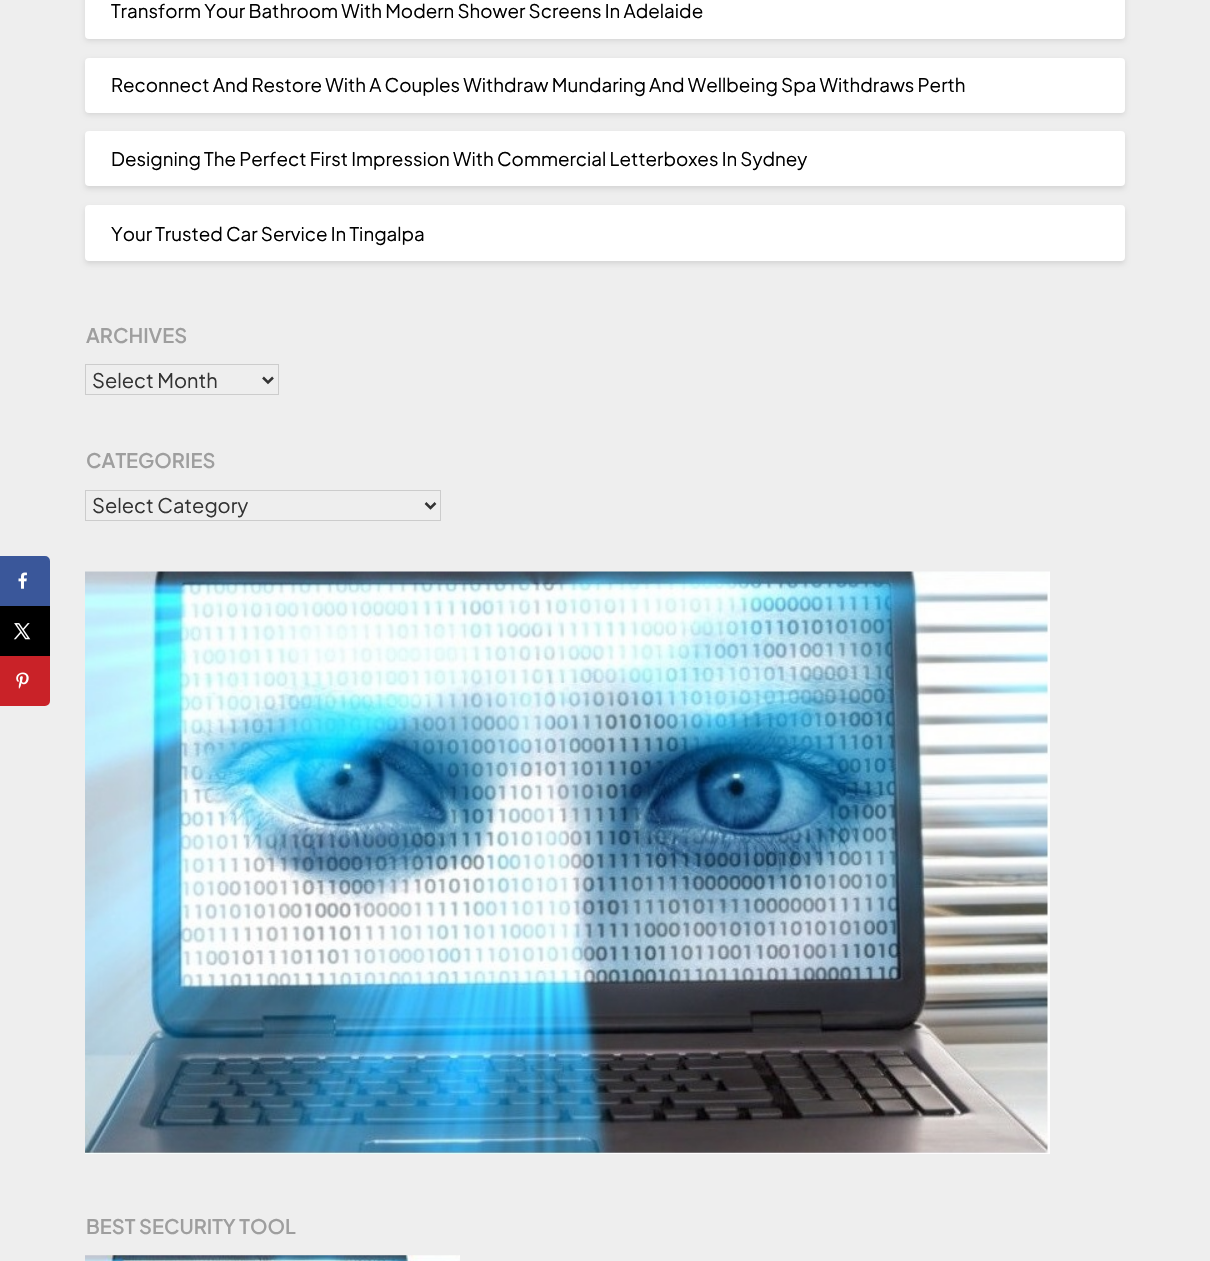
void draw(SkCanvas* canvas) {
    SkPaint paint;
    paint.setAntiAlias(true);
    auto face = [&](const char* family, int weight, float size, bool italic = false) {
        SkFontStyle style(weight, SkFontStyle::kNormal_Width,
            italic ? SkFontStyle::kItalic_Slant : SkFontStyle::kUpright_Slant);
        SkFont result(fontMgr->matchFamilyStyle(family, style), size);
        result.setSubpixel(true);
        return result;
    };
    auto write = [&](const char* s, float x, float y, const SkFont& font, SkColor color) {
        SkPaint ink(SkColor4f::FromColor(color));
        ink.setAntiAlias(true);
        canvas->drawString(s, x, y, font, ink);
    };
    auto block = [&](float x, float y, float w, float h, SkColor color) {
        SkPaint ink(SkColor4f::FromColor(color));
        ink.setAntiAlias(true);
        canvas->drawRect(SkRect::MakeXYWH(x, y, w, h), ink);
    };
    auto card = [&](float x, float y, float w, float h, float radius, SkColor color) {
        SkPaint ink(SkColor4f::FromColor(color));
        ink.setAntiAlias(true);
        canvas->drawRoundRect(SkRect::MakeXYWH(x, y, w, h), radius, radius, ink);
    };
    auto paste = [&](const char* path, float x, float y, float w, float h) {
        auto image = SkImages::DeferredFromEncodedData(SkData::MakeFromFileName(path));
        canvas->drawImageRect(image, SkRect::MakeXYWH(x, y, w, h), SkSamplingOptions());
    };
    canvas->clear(SkColorSetRGB(238, 238, 238));
    paint.setColor(SkColorSetRGB(58, 87, 154));
    canvas->drawPath(SkPathBuilder().moveTo(1.5f, 557.5f).lineTo(45, 557.5f).cubicTo(47, 557.5f, 48.5f, 559, 48.5f, 561).lineTo(48.5f, 604.5f).lineTo(1.5f, 604.5f).close().detach(), paint);
    paint.setStyle(SkPaint::kStroke_Style);
    paint.setStrokeWidth(3);
    canvas->drawPath(SkPathBuilder().moveTo(1.5f, 557.5f).lineTo(45, 557.5f).cubicTo(47, 557.5f, 48.5f, 559, 48.5f, 561).lineTo(48.5f, 604.5f).lineTo(1.5f, 604.5f).close().detach(), paint);
    paste("pic1.png", 18, 572, 9, 17);
    block(0, 606, 50, 50, SK_ColorBLACK);
    paste("pic2.png", 13, 623, 18, 17);
    paint.setStyle(SkPaint::kFill_Style);
    paint.setColor(SkColorSetRGB(201, 34, 40));
    canvas->drawPath(SkPathBuilder().moveTo(1.5f, 657.5f).lineTo(48.5f, 657.5f).lineTo(48.5f, 701).cubicTo(48.5f, 703, 47, 704.5f, 45, 704.5f).lineTo(1.5f, 704.5f).close().detach(), paint);
    paint.setStyle(SkPaint::kStroke_Style);
    canvas->drawPath(SkPathBuilder().moveTo(1.5f, 657.5f).lineTo(48.5f, 657.5f).lineTo(48.5f, 701).cubicTo(48.5f, 703, 47, 704.5f, 45, 704.5f).lineTo(1.5f, 704.5f).close().detach(), paint);
    paste("pic3.png", 16, 672, 13, 17);
    paint.setStyle(SkPaint::kFill_Style);
    paint.setColor(SkColorSetARGB(26, 0, 0, 0));
    paint.setMaskFilter(SkMaskFilter::MakeBlur(kNormal_SkBlurStyle, 2.5f));
    canvas->drawRoundRect(SkRect::MakeXYWH(85, -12, 1040, 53), 4, 4, paint);
    paint.setMaskFilter(nullptr);
    card(85, -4, 1040, 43, 4, SK_ColorWHITE);
    auto kFont1 = face("Plus Jakarta Sans", 400, 18.75f);
    write("Transform Your Bathroom With Modern Shower Screens In Adelaide", 111, 18, kFont1, SK_ColorBLACK);
    paint.setMaskFilter(SkMaskFilter::MakeBlur(kNormal_SkBlurStyle, 2.5f));
    canvas->drawRoundRect(SkRect::MakeXYWH(85, 60, 1040, 55), 4, 4, paint);
    paint.setMaskFilter(nullptr);
    card(85, 58, 1040, 55, 4, SK_ColorWHITE);
    write("Reconnect And Restore With A Couples Withdraw Mundaring And Wellbeing Spa Withdraws Perth", 111, 92, kFont1, SK_ColorBLACK);
    paint.setMaskFilter(SkMaskFilter::MakeBlur(kNormal_SkBlurStyle, 2.5f));
    canvas->drawRoundRect(SkRect::MakeXYWH(85, 134, 1040, 55), 4, 4, paint);
    paint.setMaskFilter(nullptr);
    card(85, 131, 1040, 55, 4, SK_ColorWHITE);
    write("Designing The Perfect First Impression With Commercial Letterboxes In Sydney", 111, 166, kFont1, SK_ColorBLACK);
    paint.setMaskFilter(SkMaskFilter::MakeBlur(kNormal_SkBlurStyle, 2.5f));
    canvas->drawRoundRect(SkRect::MakeXYWH(85, 208, 1040, 56), 4, 4, paint);
    paint.setMaskFilter(nullptr);
    card(85, 205, 1040, 56, 4, SK_ColorWHITE);
    write("Your Trusted Car Service In Tingalpa", 111, 241, kFont1, SK_ColorBLACK);
    auto kFont2 = face("Plus Jakarta Sans", 600, 20);
    write("ARCHIVES", 86, 343, kFont2, SkColorSetRGB(158, 158, 158));
    paint.setStyle(SkPaint::kStroke_Style);
    paint.setStrokeWidth(1);
    paint.setColor(SkColorSetRGB(204, 204, 204));
    canvas->drawRect(SkRect::MakeXYWH(85.5f, 364.5f, 193, 30), paint);
    paint.setStrokeWidth(2.5f);
    paint.setColor(SkColorSetRGB(51, 51, 51));
    canvas->drawPath(SkPathBuilder().moveTo(263, 377.5f).lineTo(268, 382.5f).lineTo(273, 377.5f).detach(), paint);
    auto kFont3 = face("Plus Jakarta Sans", 400, 20);
    write("Select Month", 92, 388, kFont3, SkColorSetRGB(51, 51, 51));
    write("CATEGORIES", 86, 468, kFont2, SkColorSetRGB(158, 158, 158));
    paint.setStrokeWidth(1);
    paint.setColor(SkColorSetRGB(204, 204, 204));
    canvas->drawRect(SkRect::MakeXYWH(85.5f, 490.5f, 355, 30), paint);
    paint.setStrokeWidth(2.5f);
    paint.setColor(SkColorSetRGB(51, 51, 51));
    canvas->drawPath(SkPathBuilder().moveTo(425.5f, 503).lineTo(430.5f, 508).lineTo(435.5f, 503).detach(), paint);
    write("Select Category", 92, 513, kFont3, SkColorSetRGB(51, 51, 51));
    paste("pic4.png", 85, 571, 965, 583);
    write("BEST SECURITY TOOL", 86, 1234, kFont2, SkColorSetRGB(158, 158, 158));
    paste("pic5.png", 85, 1255, 375, 6);
}
